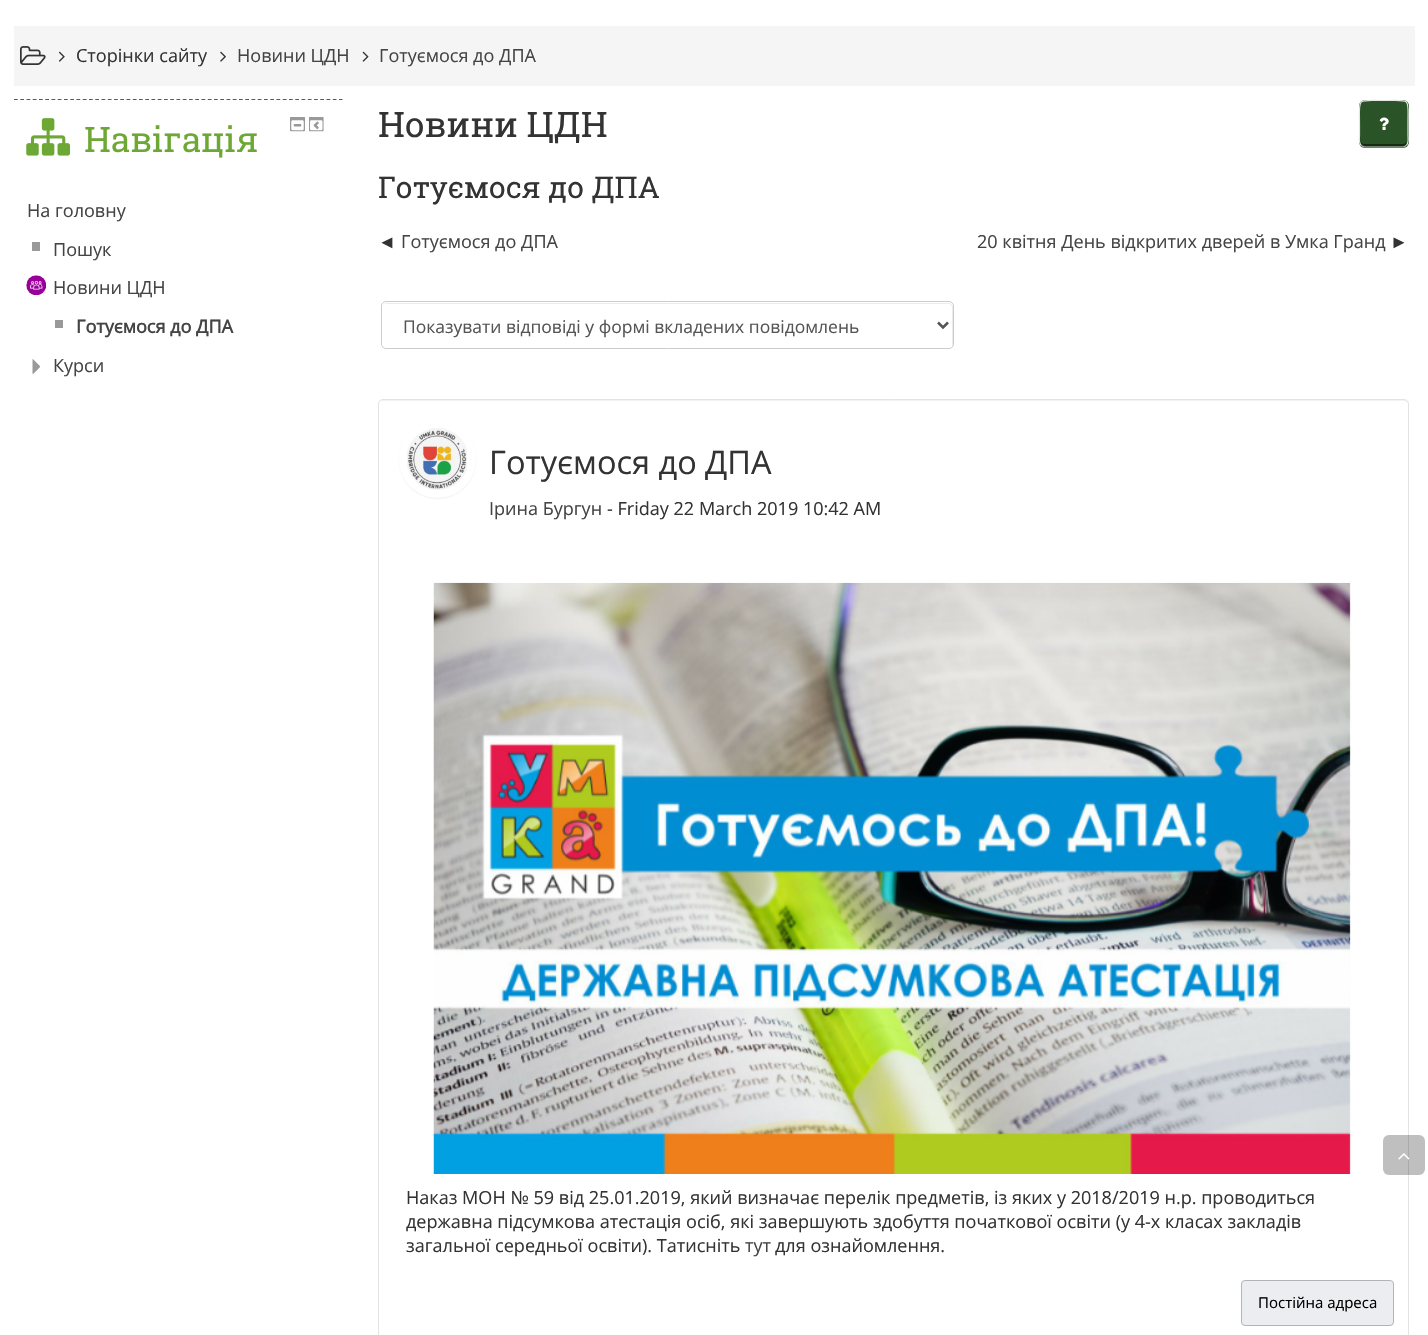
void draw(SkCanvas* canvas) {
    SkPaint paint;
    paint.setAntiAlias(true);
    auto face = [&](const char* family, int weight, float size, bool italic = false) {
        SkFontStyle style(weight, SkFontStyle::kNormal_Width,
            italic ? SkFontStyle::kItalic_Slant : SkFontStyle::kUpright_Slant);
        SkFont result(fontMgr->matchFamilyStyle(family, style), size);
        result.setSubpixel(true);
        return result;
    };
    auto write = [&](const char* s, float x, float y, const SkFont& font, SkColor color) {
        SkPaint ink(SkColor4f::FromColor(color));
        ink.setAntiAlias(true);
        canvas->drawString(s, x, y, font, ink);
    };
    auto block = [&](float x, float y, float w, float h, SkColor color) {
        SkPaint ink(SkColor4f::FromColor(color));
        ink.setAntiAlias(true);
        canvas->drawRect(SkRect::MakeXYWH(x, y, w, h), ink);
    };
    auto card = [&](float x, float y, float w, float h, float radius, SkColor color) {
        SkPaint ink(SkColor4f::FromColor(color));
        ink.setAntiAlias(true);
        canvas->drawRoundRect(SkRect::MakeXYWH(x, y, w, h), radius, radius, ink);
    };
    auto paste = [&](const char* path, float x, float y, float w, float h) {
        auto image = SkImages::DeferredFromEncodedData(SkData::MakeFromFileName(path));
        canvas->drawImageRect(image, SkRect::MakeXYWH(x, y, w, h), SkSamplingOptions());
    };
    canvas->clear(SK_ColorWHITE);
    block(14, 26, 1401, 60, SkColorSetRGB(245, 245, 245));
    paste("pic1.png", 20, 46, 26, 19);
    paste("pic2.png", 58, 51, 7, 11);
    auto kFont1 = face("Open Sans", 400, 18.05f);
    write("Сторінки сайту", 76, 62, kFont1, SkColorSetRGB(51, 51, 51));
    paste("pic3.png", 220, 51, 6, 11);
    write("Новини ЦДН", 237, 62, kFont1, SkColorSetRGB(68, 68, 68));
    paste("pic4.png", 362, 51, 7, 11);
    write("Готуємося до ДПА", 379, 62, kFont1, SkColorSetRGB(68, 68, 68));
    paint.setStyle(SkPaint::kStroke_Style);
    paint.setStrokeWidth(1.2f);
    paint.setColor(SkColorSetRGB(89, 88, 93));
    paint.setPathEffect(SkDashPathEffect::Make({{3.75f, 2.5f}}, 0));
    canvas->drawPath(SkPathBuilder().moveTo(14, 99.5f).lineTo(342.5f, 99.5f).detach(), paint);
    paint.setPathEffect(nullptr);
    paste("pic5.png", 26, 118, 44, 38);
    auto kFont2 = face("Roboto Slab", 400, 35);
    write("Навігація", 84, 152, kFont2, SkColorSetRGB(110, 168, 52));
    paste("pic6.png", 290, 117, 15, 15);
    paste("pic7.png", 309, 117, 15, 15);
    write("На головну", 27, 217, kFont1, SkColorSetRGB(68, 68, 68));
    write("Пошук", 53, 256, kFont1, SkColorSetRGB(68, 68, 68));
    block(32, 242, 8, 9, SkColorSetRGB(153, 153, 153));
    paste("pic8.png", 26, 275, 20, 20);
    write("Новини ЦДН", 53, 294, kFont1, SkColorSetRGB(68, 68, 68));
    auto kFont3 = face("Open Sans", 700, 18.05f);
    write("Готуємося до ДПА", 76, 333, kFont3, SkColorSetRGB(68, 68, 68));
    block(55, 320, 8, 8, SkColorSetRGB(153, 153, 153));
    paste("pic9.png", 32, 359, 8, 15);
    write("Курси", 53, 372, kFont1, SkColorSetRGB(68, 68, 68));
    write("Новини ЦДН", 378, 137, kFont2, SkColorSetRGB(51, 51, 51));
    card(1359, 100, 50, 48, 6, SkColorSetRGB(43, 83, 40));
    paint.setStyle(SkPaint::kFill_Style);
    paint.setColor(SkColorSetRGB(22, 42, 20));
    canvas->drawPath(SkPathBuilder().moveTo(1360, 139).cubicTo(1360, 147, 1364, 146, 1371, 146).lineTo(1397, 146).cubicTo(1404, 146, 1408, 147, 1408, 139).cubicTo(1408, 142, 1405, 144, 1402, 144).lineTo(1365, 144).cubicTo(1362, 144, 1360, 142, 1360, 139).close().detach(), paint);
    paint.setStyle(SkPaint::kStroke_Style);
    paint.setColor(SkColorSetRGB(179, 179, 179));
    canvas->drawPath(SkPathBuilder().moveTo(1406.5f, 145).cubicTo(1405.5f, 146.5f, 1404, 147, 1402.5f, 147).lineTo(1365, 147).cubicTo(1363.5f, 147, 1362, 146.5f, 1361, 145).detach(), paint);
    paint.setColor(SkColorSetRGB(230, 230, 230));
    canvas->drawPath(SkPathBuilder().moveTo(1361, 145).cubicTo(1358.5f, 142.5f, 1359.5f, 138.5f, 1359.5f, 135.5f).lineTo(1359.5f, 124).cubicTo(1359.5f, 96.5f, 1356, 100.5f, 1384, 100.5f).cubicTo(1411.5f, 100.5f, 1408, 96.5f, 1408, 124).lineTo(1408, 135.5f).cubicTo(1408, 138.5f, 1409, 142.5f, 1406.5f, 145).detach(), paint);
    paste("pic10.png", 1379, 117, 10, 13);
    auto kFont4 = face("Roboto Slab", 400, 30);
    write("Готуємося до ДПА", 378, 198, kFont4, SkColorSetRGB(51, 51, 51));
    auto kFont5 = face("Liberation Sans", 400, 18.05f);
    write("◄", 378, 248, kFont5, SkColorSetRGB(51, 51, 51));
    write("Готуємося до ДПА", 401, 248, kFont1, SkColorSetRGB(68, 68, 68));
    write("20 квітня День відкритих дверей в Умка Гранд", 977, 248, kFont1, SkColorSetRGB(68, 68, 68));
    write("►", 1390, 248, kFont5, SkColorSetRGB(51, 51, 51));
    paint.setStyle(SkPaint::kFill_Style);
    paint.setColor(SkColorSetRGB(236, 236, 236));
    canvas->drawPath(SkPathBuilder().moveTo(386, 304).lineTo(949, 304).cubicTo(951, 304, 952, 305, 952, 308).lineTo(952, 347).cubicTo(952, 346, 953, 345, 953, 344).lineTo(953, 307).cubicTo(953, 305, 951, 303, 949, 303).lineTo(387, 303).cubicTo(386, 303, 385, 304, 384, 304).close().detach(), paint);
    paint.setStyle(SkPaint::kStroke_Style);
    paint.setStrokeWidth(1);
    paint.setColor(SkColorSetRGB(204, 204, 204));
    canvas->drawRoundRect(SkRect::MakeXYWH(381.5f, 301.5f, 572, 47), 4.5f, 4.5f, paint);
    paint.setStrokeWidth(2.5f);
    paint.setColor(SkColorSetRGB(85, 85, 85));
    canvas->drawPath(SkPathBuilder().moveTo(938, 322.5f).lineTo(943, 327.5f).lineTo(948, 322.5f).detach(), paint);
    auto kFont6 = face("Open Sans", 400, 17.5f);
    write("Показувати відповіді у формі вкладених повідомлень", 403, 333, kFont6, SkColorSetRGB(85, 85, 85));
    paint.setStyle(SkPaint::kFill_Style);
    paint.setColor(SkColorSetRGB(242, 242, 242));
    canvas->drawPath(SkPathBuilder().moveTo(382, 401).lineTo(1404, 401).cubicTo(1406, 401, 1408, 403, 1408, 405).cubicTo(1408, 402, 1407, 400, 1404, 400).lineTo(383, 400).cubicTo(380, 400, 379, 402, 379, 405).cubicTo(379, 403, 380, 401, 382, 401).close().detach(), paint);
    paint.setStyle(SkPaint::kStroke_Style);
    paint.setStrokeWidth(1);
    paint.setColor(SkColorSetRGB(227, 227, 227));
    canvas->drawRoundRect(SkRect::MakeXYWH(378.5f, 399.5f, 1030, 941), 4.5f, 4.5f, paint);
    paint.setStyle(SkPaint::kFill_Style);
    paint.setColor(SkColorSetARGB(13, 0, 0, 0));
    paint.setMaskFilter(SkMaskFilter::MakeBlur(kNormal_SkBlurStyle, 0.5f));
    canvas->drawRoundRect(SkRect::MakeXYWH(399, 421, 77, 78), 38.5f, 38.5f, paint);
    paint.setMaskFilter(nullptr);
    paint.setColor(SK_ColorWHITE);
    canvas->drawRoundRect(SkRect::MakeXYWH(402, 423, 71, 72), 35.5f, 35.5f, paint);
    paint.setStyle(SkPaint::kStroke_Style);
    paint.setStrokeWidth(6);
    canvas->drawRoundRect(SkRect::MakeXYWH(402, 423, 71, 72), 35.5f, 35.5f, paint);
    paste("pic11.png", 407, 428, 60, 62);
    auto kFont7 = face("Open Sans", 400, 32.5f);
    write("Готуємося до ДПА", 489, 474, kFont7, SkColorSetRGB(51, 51, 51));
    write("Ірина Бургун", 489, 515, kFont1, SkColorSetRGB(68, 68, 68));
    write("- Friday 22 March 2019 10:42 AM", 607, 515, kFont1, SkColorSetRGB(51, 51, 51));
    paste("pic12.png", 433, 582, 918, 592);
    write("Наказ МОН № 59 від 25.01.2019, який визначає перелік предметів, із яких у 2018/2019 н.р. проводиться", 406, 1204, kFont1, SkColorSetRGB(51, 51, 51));
    write("державна підсумкова атестація осіб, які завершують здобуття початкової освіти (у 4-х класах закладів", 406, 1228, kFont1, SkColorSetRGB(51, 51, 51));
    write("загальної середньої освіти). Татисніть", 406, 1252, kFont1, SkColorSetRGB(51, 51, 51));
    write("тут", 745, 1252, kFont1, SkColorSetRGB(68, 68, 68));
    write("для ознайомлення.", 775, 1252, kFont1, SkColorSetRGB(51, 51, 51));
    paint.setStyle(SkPaint::kFill_Style);
    paint.setColor(SkColorSetRGB(236, 237, 240));
    canvas->drawRoundRect(SkRect::MakeXYWH(1241.5f, 1280.5f, 152, 45), 3.5f, 3.5f, paint);
    paint.setStyle(SkPaint::kStroke_Style);
    paint.setStrokeWidth(1);
    paint.setColor(SkColorSetRGB(180, 180, 183));
    canvas->drawRoundRect(SkRect::MakeXYWH(1241.5f, 1280.5f, 152, 45), 3.5f, 3.5f, paint);
    auto kFont8 = face("Open Sans", 400, 15);
    write("Постійна адреса", 1258, 1308, kFont8, SK_ColorBLACK);
    card(1383, 1135, 42, 40, 6, SkColorSetARGB(64, 0, 0, 0));
    paste("pic13.png", 1398, 1153, 12, 7);
}
